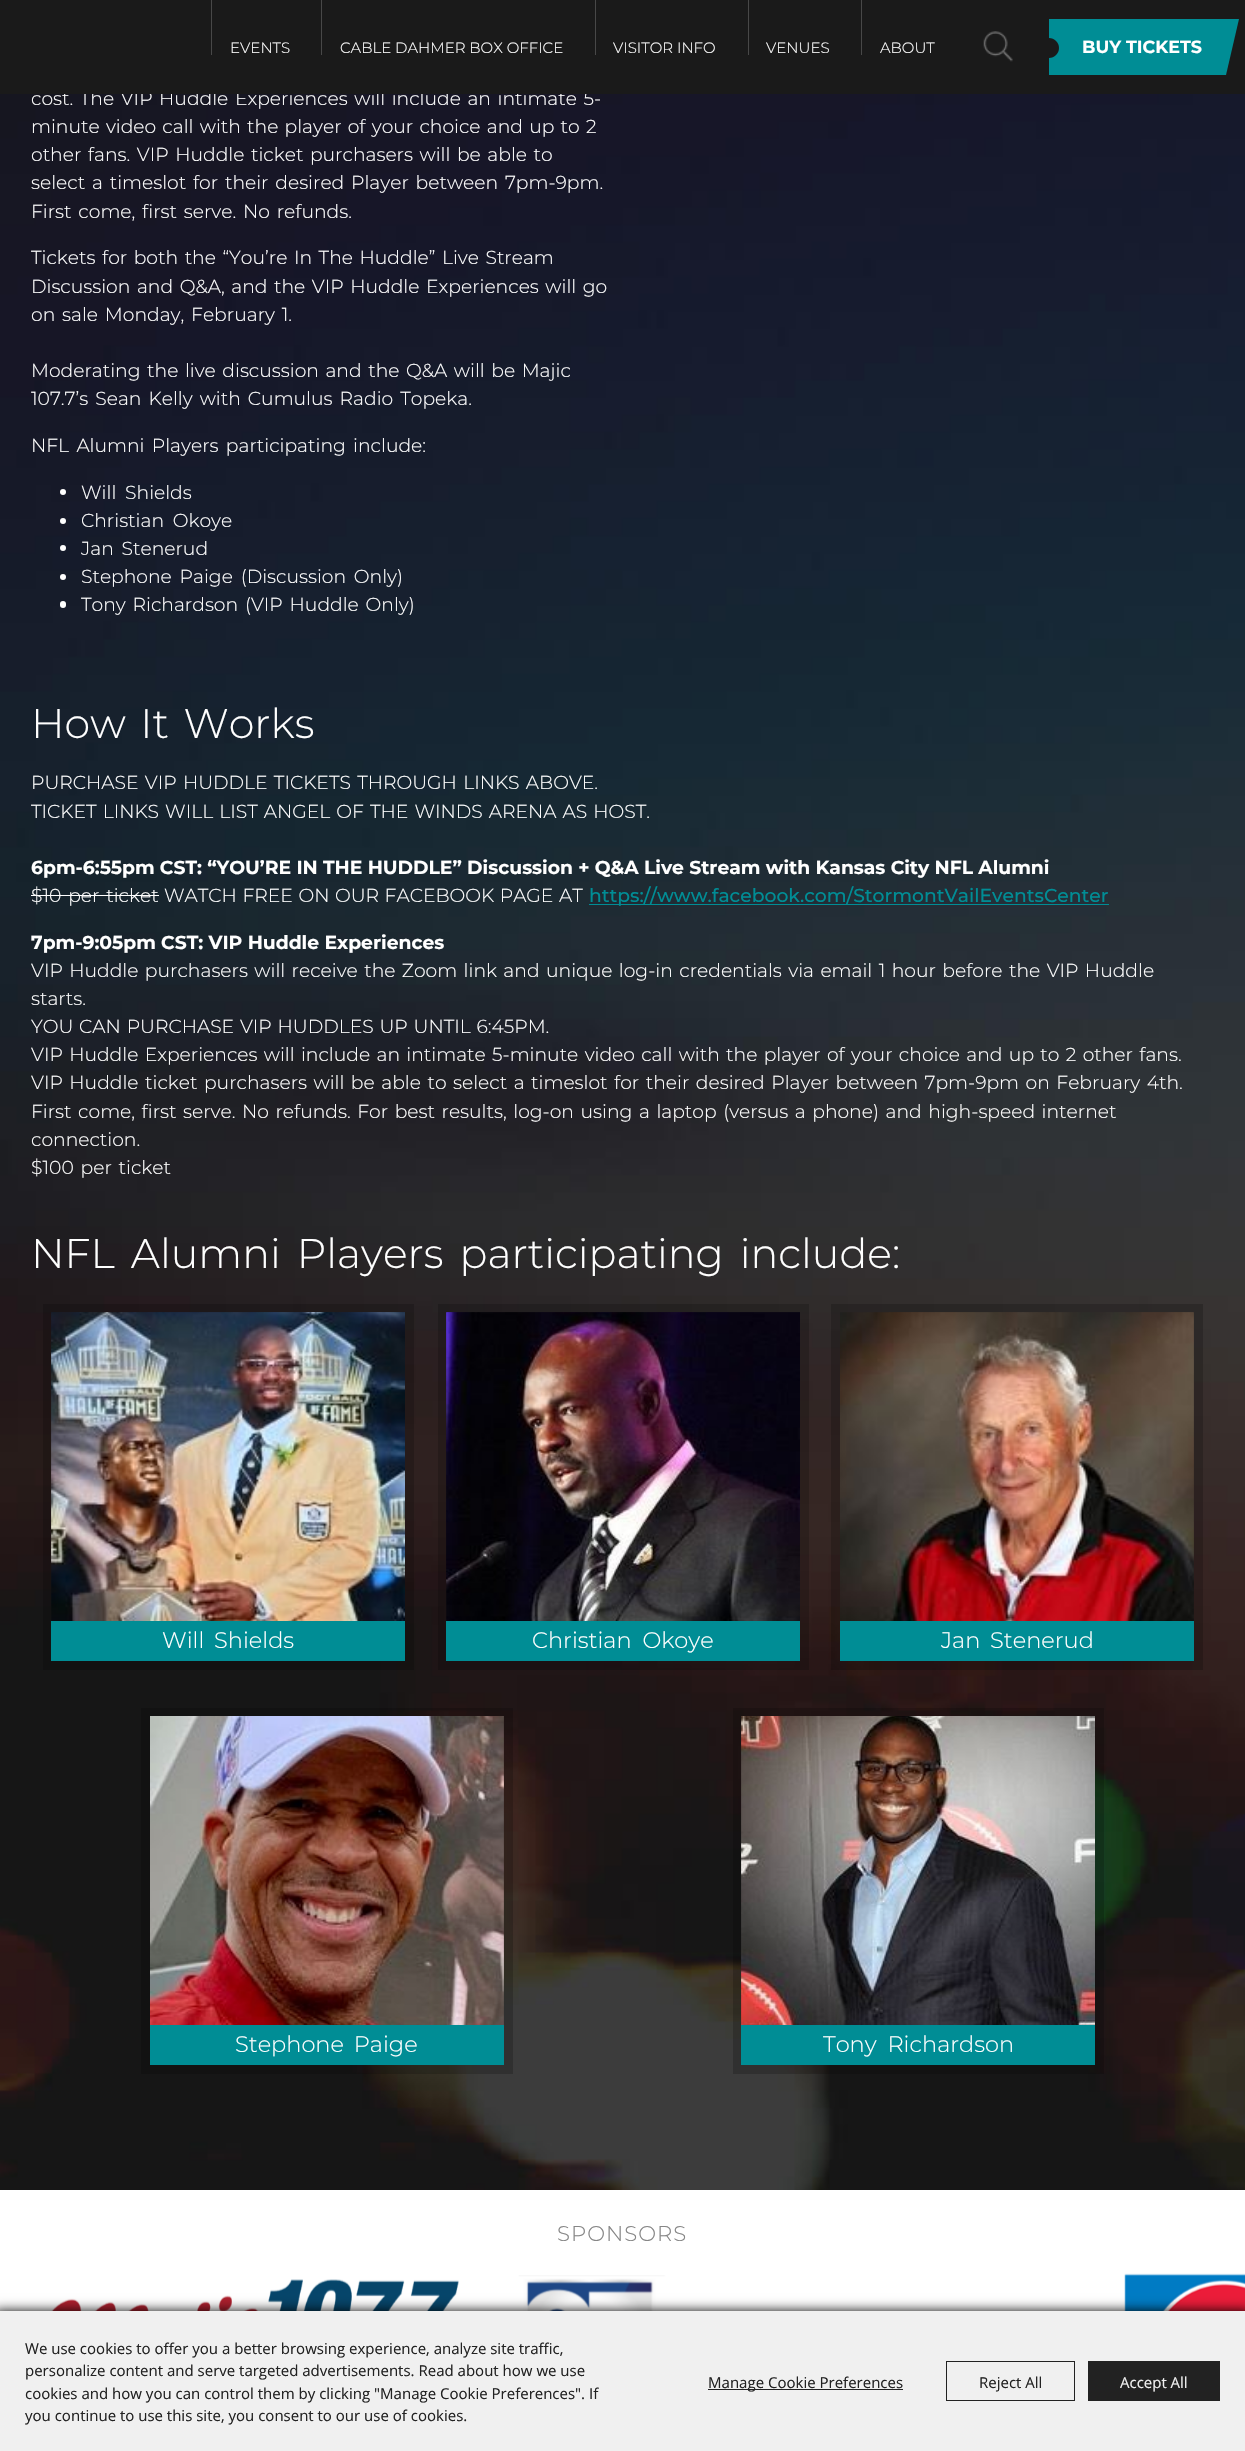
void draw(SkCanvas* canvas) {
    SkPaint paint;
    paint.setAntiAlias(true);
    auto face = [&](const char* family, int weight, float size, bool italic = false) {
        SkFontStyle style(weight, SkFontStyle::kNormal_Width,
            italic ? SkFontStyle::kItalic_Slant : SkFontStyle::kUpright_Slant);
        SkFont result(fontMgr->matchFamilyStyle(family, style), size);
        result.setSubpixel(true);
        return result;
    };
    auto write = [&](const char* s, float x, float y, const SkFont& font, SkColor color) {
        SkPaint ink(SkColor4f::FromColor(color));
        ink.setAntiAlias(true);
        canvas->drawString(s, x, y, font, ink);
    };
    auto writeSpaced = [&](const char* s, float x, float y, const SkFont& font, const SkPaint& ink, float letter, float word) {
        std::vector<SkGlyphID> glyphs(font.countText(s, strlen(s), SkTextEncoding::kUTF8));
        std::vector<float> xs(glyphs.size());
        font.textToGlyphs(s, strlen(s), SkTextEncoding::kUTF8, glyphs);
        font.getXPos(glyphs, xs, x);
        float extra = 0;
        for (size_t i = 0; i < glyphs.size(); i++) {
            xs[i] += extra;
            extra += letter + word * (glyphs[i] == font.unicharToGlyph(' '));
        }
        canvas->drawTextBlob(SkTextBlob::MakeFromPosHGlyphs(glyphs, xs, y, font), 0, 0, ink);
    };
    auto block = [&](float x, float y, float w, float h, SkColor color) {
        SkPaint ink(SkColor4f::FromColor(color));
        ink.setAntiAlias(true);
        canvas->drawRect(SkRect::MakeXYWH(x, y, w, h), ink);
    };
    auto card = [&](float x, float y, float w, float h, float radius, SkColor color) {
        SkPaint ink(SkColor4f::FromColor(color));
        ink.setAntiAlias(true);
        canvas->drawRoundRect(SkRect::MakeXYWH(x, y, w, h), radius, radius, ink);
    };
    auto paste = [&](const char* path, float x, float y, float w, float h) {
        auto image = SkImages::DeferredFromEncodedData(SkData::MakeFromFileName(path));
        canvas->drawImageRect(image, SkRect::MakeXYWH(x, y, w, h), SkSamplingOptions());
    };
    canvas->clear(SK_ColorWHITE);
    paste("pic1.png", 0, 94, 1245, 2096);
    auto kFont1 = face("Montserrat", 300, 18.75f);
    paint.setColor(SK_ColorWHITE);
    writeSpaced("cost. The VIP Huddle Experiences will include an intimate 5-", 31, 105, kFont1, paint, 0, 1.75f);
    block(0, 0, 1245, 94, SkColorSetRGB(26, 26, 26));
    block(211, 0, 1, 55, SkColorSetRGB(72, 72, 72));
    auto kFont2 = face("Montserrat", 300, 15);
    write("EVENTS", 230, 53, kFont2, SK_ColorWHITE);
    block(321, 0, 1, 55, SkColorSetRGB(72, 72, 72));
    write("CABLE DAHMER BOX OFFICE", 340, 53, kFont2, SK_ColorWHITE);
    block(595, 0, 1, 55, SkColorSetRGB(72, 72, 72));
    write("VISITOR INFO", 613, 53, kFont2, SK_ColorWHITE);
    block(748, 0, 1, 55, SkColorSetRGB(72, 72, 72));
    write("VENUES", 766, 53, kFont2, SK_ColorWHITE);
    block(861, 0, 1, 55, SkColorSetRGB(72, 72, 72));
    write("ABOUT", 880, 53, kFont2, SK_ColorWHITE);
    paste("pic2.png", 983, 31, 30, 31);
    block(1049, 19, 177, 56, SkColorSetRGB(0, 141, 149));
    paint.setColor(SkColorSetRGB(26, 26, 26));
    canvas->drawPath(SkPathBuilder().moveTo(1049, 38).cubicTo(1054.5f, 38, 1059, 42.5f, 1059, 48).cubicTo(1059, 53.5f, 1054.5f, 58, 1049, 58).close().detach(), paint);
    auto kFont3 = face("Montserrat", 700, 17.5f);
    write("BUY TICKETS", 1082, 53, kFont3, SK_ColorWHITE);
    paint.setColor(SkColorSetRGB(0, 141, 149));
    canvas->drawPath(SkPathBuilder().moveTo(1226, 75).lineTo(1226, 19).lineTo(1239, 19).close().detach(), paint);
    paint.setColor(SK_ColorWHITE);
    writeSpaced("minute video call with the player of your choice and up to 2", 31, 133, kFont1, paint, 0, 1.4f);
    writeSpaced("other fans. VIP Huddle ticket purchasers will be able to", 31, 161, kFont1, paint, 0, 1.75f);
    writeSpaced("select a timeslot for their desired Player between 7pm-9pm.", 31, 189, kFont1, paint, 0, 2);
    writeSpaced("First come, first serve. No refunds.", 31, 218, kFont1, paint, 0, 2);
    writeSpaced("Tickets for both the “You’re In The Huddle” Live Stream", 31, 264, kFont1, paint, 0, 1.75f);
    writeSpaced("Discussion and Q&A, and the VIP Huddle Experiences will go", 31, 293, kFont1, paint, 0, 1.75f);
    writeSpaced("on sale Monday, February 1.", 31, 321, kFont1, paint, 0, 2);
    writeSpaced("Moderating the live discussion and the Q&A will be Majic", 31, 377, kFont1, paint, 0, 1.75f);
    writeSpaced("107.7’s Sean Kelly with Cumulus Radio Topeka.", 31, 405, kFont1, paint, 0, 2.25f);
    writeSpaced("NFL Alumni Players participating include:", 31, 452, kFont1, paint, 0, 2.5f);
    canvas->drawCircle(63, 492, 3, paint);
    writeSpaced("Will Shields", 81, 499, kFont1, paint, 0, 4);
    canvas->drawCircle(63, 521, 3, paint);
    writeSpaced("Christian Okoye", 81, 527, kFont1, paint, 0, 4);
    canvas->drawCircle(63, 548, 3, paint);
    writeSpaced("Jan Stenerud", 81, 555, kFont1, paint, 0, 3);
    canvas->drawCircle(63, 577, 3, paint);
    writeSpaced("Stephone Paige (Discussion Only)", 81, 583, kFont1, paint, 0, 3);
    card(60, 601, 6, 7, 3, SK_ColorWHITE);
    writeSpaced("Tony Richardson (VIP Huddle Only)", 81, 611, kFont1, paint, 0, 2);
    auto kFont4 = face("Montserrat", 300, 41.25f);
    writeSpaced("How It Works", 31, 738, kFont4, paint, 0, 4);
    writeSpaced("PURCHASE VIP HUDDLE TICKETS THROUGH LINKS ABOVE.", 31, 789, kFont1, paint, 0, 1.5f);
    writeSpaced("TICKET LINKS WILL LIST ANGEL OF THE WINDS ARENA AS HOST.", 31, 818, kFont1, paint, 0, 1.25f);
    auto kFont5 = face("Montserrat", 700, 18.75f);
    write("6pm-6:55pm CST: “YOU’RE IN THE HUDDLE” Discussion + Q&A Live Stream with Kansas City NFL Alumni", 31, 874, kFont5, SK_ColorWHITE);
    writeSpaced("$10 per ticket", 31, 902, kFont1, paint, 0, 2);
    block(31, 895, 128, 1, SK_ColorWHITE);
    writeSpaced("WATCH FREE ON OUR FACEBOOK PAGE AT", 164, 902, kFont1, paint, 0, 0.75f);
    block(589, 904, 520, 1, SkColorSetRGB(0, 141, 149));
    auto kFont6 = face("Montserrat", 500, 18.75f);
    write("https://www.facebook.com/StormontVailEventsCenter", 589, 902, kFont6, SkColorSetRGB(0, 141, 149));
    write("7pm-9:05pm CST: VIP Huddle Experiences", 31, 949, kFont5, SK_ColorWHITE);
    writeSpaced("VIP Huddle purchasers will receive the Zoom link and unique log-in credentials via email 1 hour before the VIP Huddle", 31, 977, kFont1, paint, 0, 1.6f);
    write("starts.", 31, 1005, kFont1, SK_ColorWHITE);
    writeSpaced("YOU CAN PURCHASE VIP HUDDLES UP UNTIL 6:45PM.", 31, 1033, kFont1, paint, 0, 1);
    writeSpaced("VIP Huddle Experiences will include an intimate 5-minute video call with the player of your choice and up to 2 other fans.", 31, 1061, kFont1, paint, 0, 1.5f);
    writeSpaced("VIP Huddle ticket purchasers will be able to select a timeslot for their desired Player between 7pm-9pm on February 4th.", 31, 1089, kFont1, paint, 0, 1.7f);
    writeSpaced("First come, first serve. No refunds. For best results, log-on using a laptop (versus a phone) and high-speed internet", 31, 1118, kFont1, paint, 0, 1.75f);
    write("connection.", 31, 1146, kFont1, SK_ColorWHITE);
    writeSpaced("$100 per ticket", 31, 1174, kFont1, paint, 0, 2);
    writeSpaced("NFL Alumni Players participating include:", 31, 1268, kFont4, paint, 0, 5.5f);
    block(43, 1304, 371, 366, SkColorSetARGB(51, 0, 0, 0));
    paste("pic3.png", 51, 1312, 354, 309);
    paste("pic4.png", 51, 1312, 354, 251);
    block(51, 1621, 354, 40, SkColorSetRGB(0, 141, 149));
    auto kFont7 = face("Montserrat", 300, 22.5f);
    writeSpaced("Will Shields", 162, 1648, kFont7, paint, 0, 4);
    block(438, 1304, 371, 366, SkColorSetARGB(51, 0, 0, 0));
    paste("pic5.png", 446, 1312, 354, 309);
    paste("pic6.png", 446, 1312, 354, 271);
    block(446, 1621, 354, 40, SkColorSetRGB(0, 141, 149));
    writeSpaced("Christian Okoye", 532, 1648, kFont7, paint, 0, 5);
    block(831, 1304, 372, 366, SkColorSetARGB(51, 0, 0, 0));
    paste("pic7.png", 840, 1312, 354, 309);
    paste("pic8.png", 889, 1312, 305, 309);
    block(840, 1621, 354, 40, SkColorSetRGB(0, 141, 149));
    writeSpaced("Jan Stenerud", 941, 1648, kFont7, paint, 0, 4);
    block(141, 1708, 372, 366, SkColorSetARGB(51, 0, 0, 0));
    paste("pic9.png", 503, 1716, 1, 309);
    paste("pic10.png", 150, 1716, 354, 309);
    block(150, 2025, 354, 40, SkColorSetRGB(0, 141, 149));
    writeSpaced("Stephone Paige", 235, 2052, kFont7, paint, 0, 4);
    block(733, 1708, 371, 366, SkColorSetARGB(51, 0, 0, 0));
    paste("pic11.png", 741, 1716, 1, 309);
    paste("pic12.png", 741, 1716, 354, 309);
    block(741, 2025, 354, 40, SkColorSetRGB(0, 141, 149));
    writeSpaced("Tony Richardson", 823, 2052, kFont7, paint, 0, 5);
    auto kFont8 = face("Montserrat", 300, 21.25f);
    paint.setColor(SkColorSetRGB(134, 134, 134));
    writeSpaced("SPONSORS", 557, 2241, kFont8, paint, 1, 0);
    paste("pic13.png", 51, 2279, 408, 32);
    paste("pic14.png", 518, 2275, 148, 36);
    paste("pic15.png", 1124, 2273, 121, 38);
    paint.setColor(SK_ColorBLACK);
    paint.setMaskFilter(SkMaskFilter::MakeBlur(kNormal_SkBlurStyle, 6));
    canvas->drawRect(SkRect::MakeXYWH(-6, 2311, 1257, 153), paint);
    paint.setMaskFilter(nullptr);
    block(0, 2311, 1245, 140, SkColorSetRGB(240, 240, 240));
    auto kFont9 = face("Open Sans", 400, 15);
    write("We use cookies to offer you a better browsing experience, analyze site traffic,", 25, 2354, kFont9, SkColorSetRGB(34, 34, 34));
    write("personalize content and serve targeted advertisements. Read about how we use", 25, 2376, kFont9, SkColorSetRGB(34, 34, 34));
    write("cookies and how you can control them by clicking \"Manage Cookie Preferences\". If", 25, 2399, kFont9, SkColorSetRGB(34, 34, 34));
    write("you continue to use this site, you consent to our use of cookies.", 25, 2421, kFont9, SkColorSetRGB(34, 34, 34));
    block(708, 2389, 195, 1, SkColorSetRGB(34, 34, 34));
    write("Manage Cookie Preferences", 708, 2388, kFont9, SkColorSetRGB(34, 34, 34));
    paint.setStyle(SkPaint::kStroke_Style);
    paint.setStrokeWidth(1);
    paint.setColor(SkColorSetRGB(34, 34, 34));
    canvas->drawRect(SkRect::MakeXYWH(946.5f, 2361.5f, 128, 39), paint);
    write("Reject All", 979, 2388, kFont9, SkColorSetRGB(34, 34, 34));
    block(1088, 2361, 132, 40, SkColorSetRGB(34, 34, 34));
    write("Accept All", 1120, 2388, kFont9, SkColorSetRGB(240, 240, 240));
}
